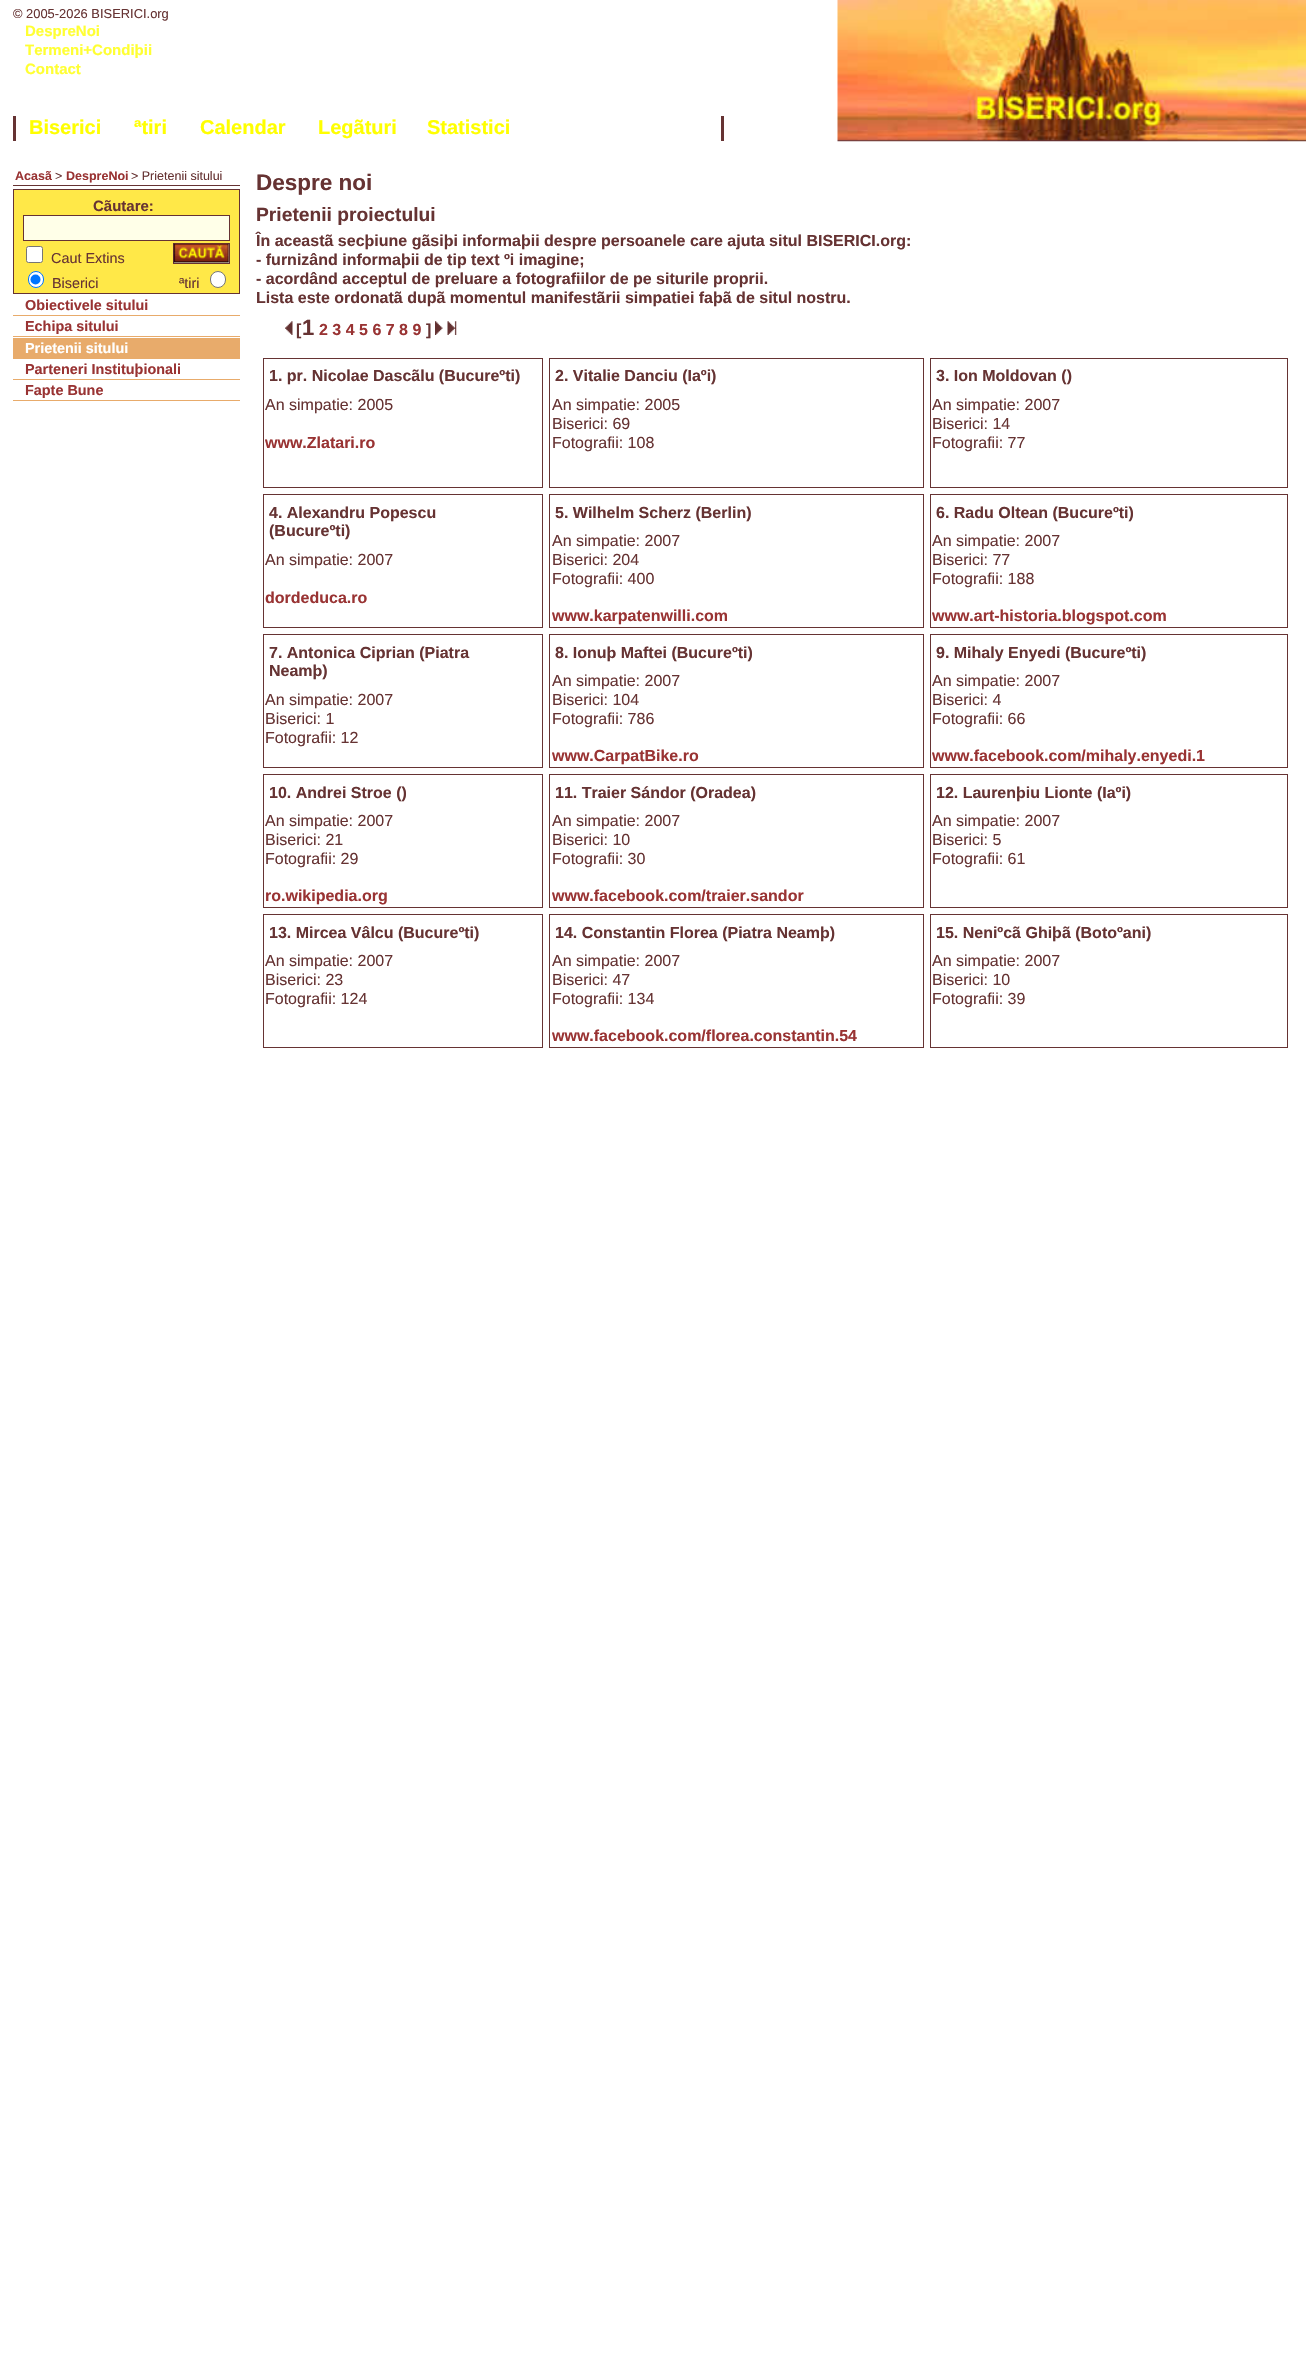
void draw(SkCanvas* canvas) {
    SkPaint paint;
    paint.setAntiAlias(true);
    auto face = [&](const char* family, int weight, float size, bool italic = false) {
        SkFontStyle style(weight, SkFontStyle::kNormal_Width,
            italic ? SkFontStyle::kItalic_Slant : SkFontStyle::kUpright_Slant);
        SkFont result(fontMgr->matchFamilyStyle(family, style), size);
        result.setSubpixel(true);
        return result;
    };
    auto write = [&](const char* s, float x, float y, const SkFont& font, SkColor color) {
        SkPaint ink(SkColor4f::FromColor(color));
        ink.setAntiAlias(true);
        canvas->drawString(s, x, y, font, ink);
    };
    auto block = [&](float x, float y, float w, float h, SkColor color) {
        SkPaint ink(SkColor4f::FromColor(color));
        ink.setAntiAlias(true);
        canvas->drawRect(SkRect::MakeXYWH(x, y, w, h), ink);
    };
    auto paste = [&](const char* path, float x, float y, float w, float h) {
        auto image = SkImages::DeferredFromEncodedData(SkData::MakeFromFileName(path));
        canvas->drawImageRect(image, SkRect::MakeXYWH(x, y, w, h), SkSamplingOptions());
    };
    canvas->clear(SK_ColorWHITE);
    auto kFont1 = face("Liberation Sans", 400, 12.9f);
    write("© 2005-2026 BISERICI.org", 13, 18, kFont1, SkColorSetRGB(102, 51, 51));
    auto kFont2 = face("Liberation Sans", 700, 15);
    write("DespreNoi", 25, 36, kFont2, SkColorSetRGB(255, 255, 51));
    write("Termeni+Condiþii", 25, 55, kFont2, SkColorSetRGB(255, 255, 51));
    write("Contact", 25, 74, kFont2, SkColorSetRGB(255, 255, 51));
    paste("pic1.png", 837, 0, 469, 142);
    block(721, 116, 3, 25, SkColorSetRGB(102, 51, 51));
    block(13, 116, 3, 25, SkColorSetRGB(102, 51, 51));
    auto kFont3 = face("Liberation Sans", 700, 20);
    write("Biserici", 29, 134, kFont3, SkColorSetRGB(255, 255, 0));
    write("ªtiri", 134, 134, kFont3, SkColorSetRGB(255, 255, 0));
    write("Calendar", 200, 134, kFont3, SkColorSetRGB(255, 255, 0));
    write("Legãturi", 318, 134, kFont3, SkColorSetRGB(255, 255, 0));
    write("Statistici", 427, 134, kFont3, SkColorSetRGB(255, 255, 0));
    block(13, 185, 227, 1, SkColorSetRGB(102, 51, 51));
    auto kFont4 = face("Liberation Sans", 700, 12.5f);
    write("Acasã", 15, 180, kFont4, SkColorSetRGB(153, 51, 51));
    auto kFont5 = face("Liberation Sans", 400, 12.5f);
    write(">", 55, 180, kFont5, SkColorSetRGB(102, 51, 51));
    write("DespreNoi", 66, 180, kFont4, SkColorSetRGB(153, 51, 51));
    write("> Prietenii sitului", 131, 180, kFont5, SkColorSetRGB(102, 51, 51));
    paint.setColor(SkColorSetRGB(255, 232, 72));
    canvas->drawRect(SkRect::MakeXYWH(13.5f, 189.5f, 226, 104), paint);
    paint.setStyle(SkPaint::kStroke_Style);
    paint.setStrokeWidth(1);
    paint.setColor(SkColorSetRGB(102, 51, 51));
    canvas->drawRect(SkRect::MakeXYWH(13.5f, 189.5f, 226, 104), paint);
    write("Cãutare:", 93, 211, kFont2, SkColorSetRGB(102, 51, 51));
    paint.setStyle(SkPaint::kFill_Style);
    paint.setColor(SkColorSetRGB(255, 255, 232));
    canvas->drawRect(SkRect::MakeXYWH(23.5f, 215.5f, 206, 25), paint);
    paint.setStyle(SkPaint::kStroke_Style);
    paint.setColor(SkColorSetRGB(102, 51, 51));
    canvas->drawRect(SkRect::MakeXYWH(23.5f, 215.5f, 206, 25), paint);
    paint.setStyle(SkPaint::kFill_Style);
    paint.setColor(SK_ColorWHITE);
    canvas->drawRoundRect(SkRect::MakeXYWH(26.5f, 246.5f, 16, 16), 2, 2, paint);
    paint.setStyle(SkPaint::kStroke_Style);
    paint.setColor(SkColorSetRGB(118, 118, 118));
    canvas->drawRoundRect(SkRect::MakeXYWH(26.5f, 246.5f, 16, 16), 2, 2, paint);
    auto kFont6 = face("Liberation Sans", 400, 14.4f);
    write("Caut Extins", 51, 263, kFont6, SkColorSetRGB(102, 51, 51));
    paint.setStyle(SkPaint::kFill_Style);
    paint.setColor(SkColorSetRGB(255, 255, 232));
    canvas->drawRect(SkRect::MakeXYWH(173.5f, 243.5f, 56, 20), paint);
    paint.setStyle(SkPaint::kStroke_Style);
    paint.setColor(SkColorSetRGB(102, 51, 51));
    canvas->drawRect(SkRect::MakeXYWH(173.5f, 243.5f, 56, 20), paint);
    paste("pic2.png", 173, 243, 56, 20);
    paint.setStyle(SkPaint::kFill_Style);
    paint.setColor(SK_ColorWHITE);
    canvas->drawRoundRect(SkRect::MakeXYWH(28.5f, 271.5f, 15, 16), 7.5f, 7.5f, paint);
    paint.setStyle(SkPaint::kStroke_Style);
    paint.setColor(SkColorSetRGB(0, 117, 255));
    canvas->drawRoundRect(SkRect::MakeXYWH(28.5f, 271.5f, 15, 16), 7.5f, 7.5f, paint);
    paint.setStyle(SkPaint::kFill_Style);
    canvas->drawCircle(35.5f, 279.5f, 5, paint);
    write("Biserici", 52, 288, kFont6, SkColorSetRGB(102, 51, 51));
    write("ªtiri", 179, 288, kFont6, SkColorSetRGB(102, 51, 51));
    paint.setColor(SK_ColorWHITE);
    canvas->drawRoundRect(SkRect::MakeXYWH(210.5f, 271.5f, 15, 16), 7.5f, 7.5f, paint);
    paint.setStyle(SkPaint::kStroke_Style);
    paint.setColor(SkColorSetRGB(118, 118, 118));
    canvas->drawRoundRect(SkRect::MakeXYWH(210.5f, 271.5f, 15, 16), 7.5f, 7.5f, paint);
    block(13, 315, 227, 1, SkColorSetRGB(232, 171, 107));
    auto kFont7 = face("Liberation Sans", 700, 14.4f);
    write("Obiectivele sitului", 25, 310, kFont7, SkColorSetRGB(153, 51, 51));
    block(13, 336, 227, 1, SkColorSetRGB(232, 171, 107));
    write("Echipa sitului", 25, 331, kFont7, SkColorSetRGB(153, 51, 51));
    block(13, 338, 227, 21, SkColorSetRGB(232, 171, 107));
    write("Prietenii sitului", 25, 353, kFont7, SK_ColorWHITE);
    block(13, 379, 227, 1, SkColorSetRGB(232, 171, 107));
    write("Parteneri Instituþionali", 25, 374, kFont7, SkColorSetRGB(153, 51, 51));
    block(13, 400, 227, 1, SkColorSetRGB(232, 171, 107));
    write("Fapte Bune", 25, 395, kFont7, SkColorSetRGB(153, 51, 51));
    auto kFont8 = face("Liberation Sans", 700, 22.5f);
    write("Despre noi", 256, 190, kFont8, SkColorSetRGB(102, 51, 51));
    auto kFont9 = face("Liberation Sans", 700, 19.25f);
    write("Prietenii proiectului", 256, 221, kFont9, SkColorSetRGB(102, 51, 51));
    auto kFont10 = face("Liberation Sans", 700, 16);
    write("În aceastã secþiune gãsiþi informaþii despre persoanele care ajuta situl BISERICI.org:", 256, 246, kFont10, SkColorSetRGB(102, 51, 51));
    write("- furnizând informaþii de tip text ºi imagine;", 256, 265, kFont10, SkColorSetRGB(102, 51, 51));
    write("- acordând acceptul de preluare a fotografiilor de pe siturile proprii.", 256, 284, kFont10, SkColorSetRGB(102, 51, 51));
    write("Lista este ordonatã dupã momentul manifestãrii simpatiei faþã de situl nostru.", 256, 303, kFont10, SkColorSetRGB(102, 51, 51));
    paste("pic3.png", 285, 321, 8, 14);
    write("[", 296, 335, kFont10, SkColorSetRGB(102, 51, 51));
    auto kFont11 = face("Liberation Sans", 700, 22);
    write("1", 302, 335, kFont11, SkColorSetRGB(102, 51, 51));
    write("2 3 4 5 6 7 8 9", 319, 335, kFont10, SkColorSetRGB(153, 51, 51));
    write("]", 426, 335, kFont10, SkColorSetRGB(102, 51, 51));
    paste("pic4.png", 435, 321, 8, 14);
    paste("pic5.png", 447, 321, 10, 14);
    paint.setColor(SkColorSetRGB(102, 51, 51));
    canvas->drawRect(SkRect::MakeXYWH(263.5f, 358.5f, 279, 129), paint);
    write("1. pr. Nicolae Dascãlu (Bucureºti)", 269, 381, kFont10, SkColorSetRGB(102, 51, 51));
    auto kFont12 = face("Liberation Sans", 400, 16);
    write("An simpatie: 2005", 265, 410, kFont12, SkColorSetRGB(102, 51, 51));
    write("www.Zlatari.ro", 265, 448, kFont10, SkColorSetRGB(153, 51, 51));
    canvas->drawRect(SkRect::MakeXYWH(549.5f, 358.5f, 374, 129), paint);
    write("2. Vitalie Danciu (Iaºi)", 555, 381, kFont10, SkColorSetRGB(102, 51, 51));
    write("An simpatie: 2005", 552, 410, kFont12, SkColorSetRGB(102, 51, 51));
    write("Biserici: 69", 552, 429, kFont12, SkColorSetRGB(102, 51, 51));
    write("Fotografii: 108", 552, 448, kFont12, SkColorSetRGB(102, 51, 51));
    canvas->drawRect(SkRect::MakeXYWH(930.5f, 358.5f, 357, 129), paint);
    write("3. Ion Moldovan ()", 936, 381, kFont10, SkColorSetRGB(102, 51, 51));
    write("An simpatie: 2007", 932, 410, kFont12, SkColorSetRGB(102, 51, 51));
    write("Biserici: 14", 932, 429, kFont12, SkColorSetRGB(102, 51, 51));
    write("Fotografii: 77", 932, 448, kFont12, SkColorSetRGB(102, 51, 51));
    canvas->drawRect(SkRect::MakeXYWH(263.5f, 494.5f, 279, 133), paint);
    write("4. Alexandru Popescu", 269, 518, kFont10, SkColorSetRGB(102, 51, 51));
    write("(Bucureºti)", 269, 536, kFont10, SkColorSetRGB(102, 51, 51));
    write("An simpatie: 2007", 265, 565, kFont12, SkColorSetRGB(102, 51, 51));
    write("dordeduca.ro", 265, 603, kFont10, SkColorSetRGB(153, 51, 51));
    canvas->drawRect(SkRect::MakeXYWH(549.5f, 494.5f, 374, 133), paint);
    write("5. Wilhelm Scherz (Berlin)", 555, 518, kFont10, SkColorSetRGB(102, 51, 51));
    write("An simpatie: 2007", 552, 546, kFont12, SkColorSetRGB(102, 51, 51));
    write("Biserici: 204", 552, 565, kFont12, SkColorSetRGB(102, 51, 51));
    write("Fotografii: 400", 552, 584, kFont12, SkColorSetRGB(102, 51, 51));
    write("www.karpatenwilli.com", 552, 621, kFont10, SkColorSetRGB(153, 51, 51));
    canvas->drawRect(SkRect::MakeXYWH(930.5f, 494.5f, 357, 133), paint);
    write("6. Radu Oltean (Bucureºti)", 936, 518, kFont10, SkColorSetRGB(102, 51, 51));
    write("An simpatie: 2007", 932, 546, kFont12, SkColorSetRGB(102, 51, 51));
    write("Biserici: 77", 932, 565, kFont12, SkColorSetRGB(102, 51, 51));
    write("Fotografii: 188", 932, 584, kFont12, SkColorSetRGB(102, 51, 51));
    write("www.art-historia.blogspot.com", 932, 621, kFont10, SkColorSetRGB(153, 51, 51));
    canvas->drawRect(SkRect::MakeXYWH(263.5f, 634.5f, 279, 133), paint);
    write("7. Antonica Ciprian (Piatra", 269, 658, kFont10, SkColorSetRGB(102, 51, 51));
    write("Neamþ)", 269, 676, kFont10, SkColorSetRGB(102, 51, 51));
    write("An simpatie: 2007", 265, 705, kFont12, SkColorSetRGB(102, 51, 51));
    write("Biserici: 1", 265, 724, kFont12, SkColorSetRGB(102, 51, 51));
    write("Fotografii: 12", 265, 743, kFont12, SkColorSetRGB(102, 51, 51));
    canvas->drawRect(SkRect::MakeXYWH(549.5f, 634.5f, 374, 133), paint);
    write("8. Ionuþ Maftei (Bucureºti)", 555, 658, kFont10, SkColorSetRGB(102, 51, 51));
    write("An simpatie: 2007", 552, 686, kFont12, SkColorSetRGB(102, 51, 51));
    write("Biserici: 104", 552, 705, kFont12, SkColorSetRGB(102, 51, 51));
    write("Fotografii: 786", 552, 724, kFont12, SkColorSetRGB(102, 51, 51));
    write("www.CarpatBike.ro", 552, 761, kFont10, SkColorSetRGB(153, 51, 51));
    canvas->drawRect(SkRect::MakeXYWH(930.5f, 634.5f, 357, 133), paint);
    write("9. Mihaly Enyedi (Bucureºti)", 936, 658, kFont10, SkColorSetRGB(102, 51, 51));
    write("An simpatie: 2007", 932, 686, kFont12, SkColorSetRGB(102, 51, 51));
    write("Biserici: 4", 932, 705, kFont12, SkColorSetRGB(102, 51, 51));
    write("Fotografii: 66", 932, 724, kFont12, SkColorSetRGB(102, 51, 51));
    write("www.facebook.com/mihaly.enyedi.1", 932, 761, kFont10, SkColorSetRGB(153, 51, 51));
    canvas->drawRect(SkRect::MakeXYWH(263.5f, 774.5f, 279, 133), paint);
    write("10. Andrei Stroe ()", 269, 798, kFont10, SkColorSetRGB(102, 51, 51));
    write("An simpatie: 2007", 265, 826, kFont12, SkColorSetRGB(102, 51, 51));
    write("Biserici: 21", 265, 845, kFont12, SkColorSetRGB(102, 51, 51));
    write("Fotografii: 29", 265, 864, kFont12, SkColorSetRGB(102, 51, 51));
    write("ro.wikipedia.org", 265, 901, kFont10, SkColorSetRGB(153, 51, 51));
    canvas->drawRect(SkRect::MakeXYWH(549.5f, 774.5f, 374, 133), paint);
    write("11. Traier Sándor (Oradea)", 555, 798, kFont10, SkColorSetRGB(102, 51, 51));
    write("An simpatie: 2007", 552, 826, kFont12, SkColorSetRGB(102, 51, 51));
    write("Biserici: 10", 552, 845, kFont12, SkColorSetRGB(102, 51, 51));
    write("Fotografii: 30", 552, 864, kFont12, SkColorSetRGB(102, 51, 51));
    write("www.facebook.com/traier.sandor", 552, 901, kFont10, SkColorSetRGB(153, 51, 51));
    canvas->drawRect(SkRect::MakeXYWH(930.5f, 774.5f, 357, 133), paint);
    write("12. Laurenþiu Lionte (Iaºi)", 936, 798, kFont10, SkColorSetRGB(102, 51, 51));
    write("An simpatie: 2007", 932, 826, kFont12, SkColorSetRGB(102, 51, 51));
    write("Biserici: 5", 932, 845, kFont12, SkColorSetRGB(102, 51, 51));
    write("Fotografii: 61", 932, 864, kFont12, SkColorSetRGB(102, 51, 51));
    canvas->drawRect(SkRect::MakeXYWH(263.5f, 914.5f, 279, 133), paint);
    write("13. Mircea Vâlcu (Bucureºti)", 269, 938, kFont10, SkColorSetRGB(102, 51, 51));
    write("An simpatie: 2007", 265, 966, kFont12, SkColorSetRGB(102, 51, 51));
    write("Biserici: 23", 265, 985, kFont12, SkColorSetRGB(102, 51, 51));
    write("Fotografii: 124", 265, 1004, kFont12, SkColorSetRGB(102, 51, 51));
    canvas->drawRect(SkRect::MakeXYWH(549.5f, 914.5f, 374, 133), paint);
    write("14. Constantin Florea (Piatra Neamþ)", 555, 938, kFont10, SkColorSetRGB(102, 51, 51));
    write("An simpatie: 2007", 552, 966, kFont12, SkColorSetRGB(102, 51, 51));
    write("Biserici: 47", 552, 985, kFont12, SkColorSetRGB(102, 51, 51));
    write("Fotografii: 134", 552, 1004, kFont12, SkColorSetRGB(102, 51, 51));
    write("www.facebook.com/florea.constantin.54", 552, 1041, kFont10, SkColorSetRGB(153, 51, 51));
    canvas->drawRect(SkRect::MakeXYWH(930.5f, 914.5f, 357, 133), paint);
    write("15. Neniºcã Ghiþã (Botoºani)", 936, 938, kFont10, SkColorSetRGB(102, 51, 51));
    write("An simpatie: 2007", 932, 966, kFont12, SkColorSetRGB(102, 51, 51));
    write("Biserici: 10", 932, 985, kFont12, SkColorSetRGB(102, 51, 51));
    write("Fotografii: 39", 932, 1004, kFont12, SkColorSetRGB(102, 51, 51));
}
